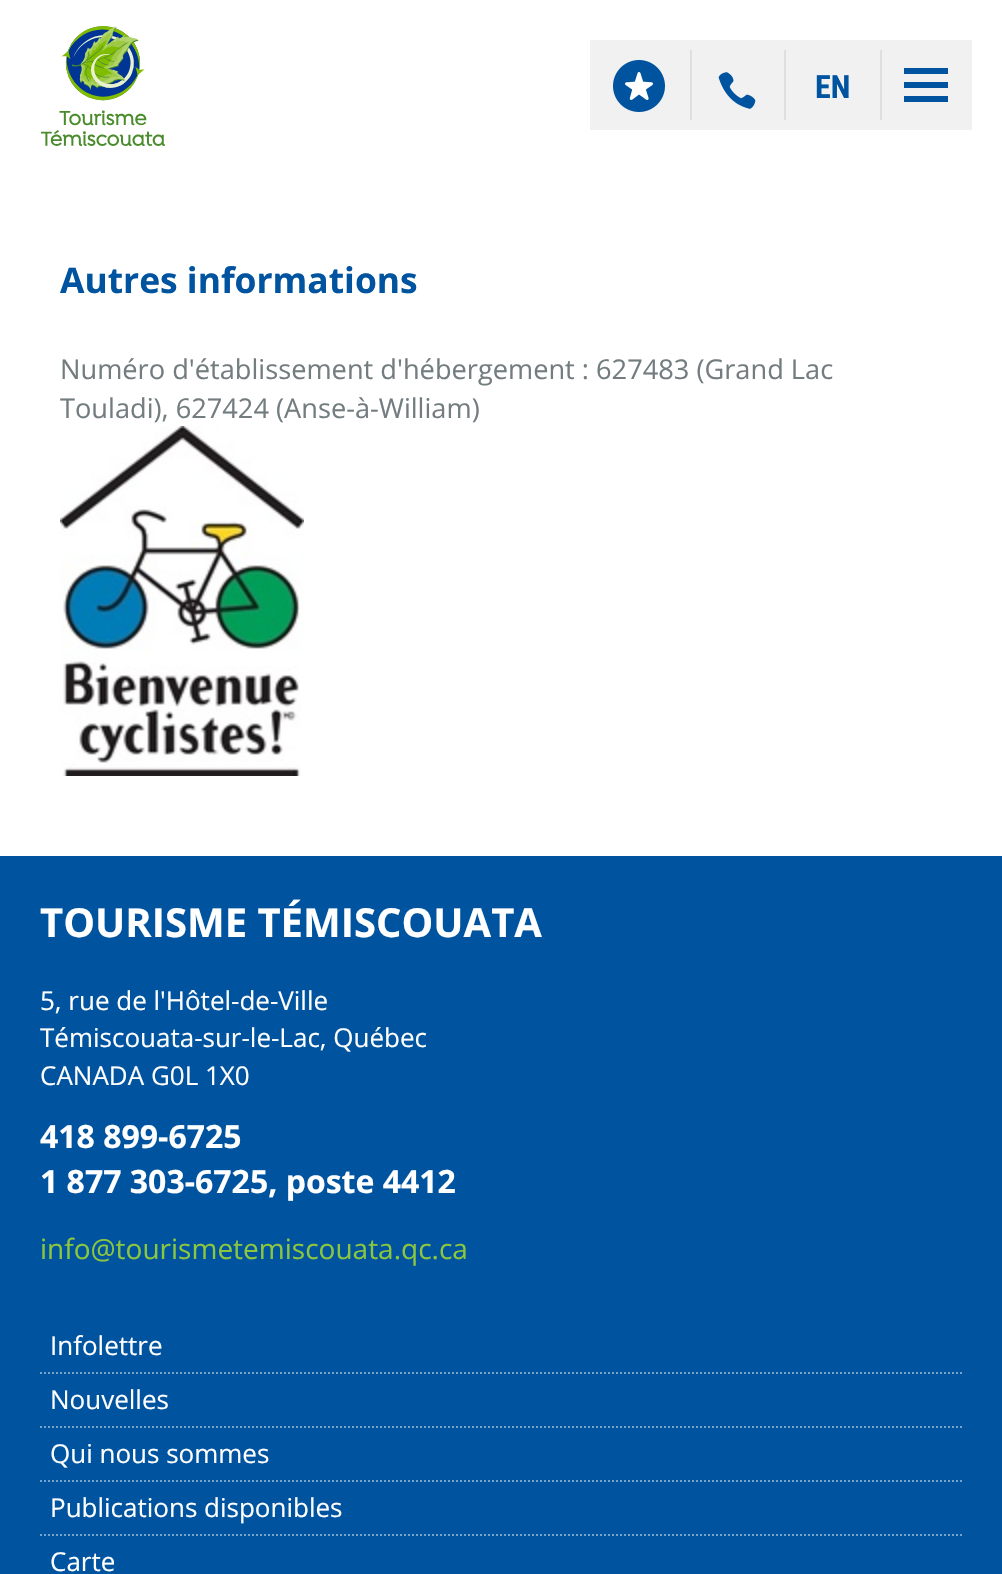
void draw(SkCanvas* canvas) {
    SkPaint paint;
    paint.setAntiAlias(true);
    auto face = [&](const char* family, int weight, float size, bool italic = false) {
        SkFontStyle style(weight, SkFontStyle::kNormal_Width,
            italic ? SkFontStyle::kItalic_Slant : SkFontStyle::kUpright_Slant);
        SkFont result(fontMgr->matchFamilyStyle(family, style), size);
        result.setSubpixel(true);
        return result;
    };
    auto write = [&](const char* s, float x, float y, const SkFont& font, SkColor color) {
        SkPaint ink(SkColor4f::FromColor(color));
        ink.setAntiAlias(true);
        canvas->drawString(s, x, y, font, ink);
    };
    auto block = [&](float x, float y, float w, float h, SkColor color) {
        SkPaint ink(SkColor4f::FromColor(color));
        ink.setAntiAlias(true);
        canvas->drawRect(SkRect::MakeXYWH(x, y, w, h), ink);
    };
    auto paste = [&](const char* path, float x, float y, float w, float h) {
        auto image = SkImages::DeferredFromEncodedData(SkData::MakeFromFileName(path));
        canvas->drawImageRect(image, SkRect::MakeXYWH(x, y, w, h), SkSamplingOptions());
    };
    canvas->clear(SK_ColorWHITE);
    paste("pic1.png", 41, 26, 124, 120);
    block(590, 40, 382, 90, SkColorSetRGB(241, 241, 241));
    paste("pic2.png", 613, 60, 52, 52);
    block(690, 50, 2, 70, SkColorSetRGB(223, 223, 223));
    paste("pic3.png", 718, 72, 38, 37);
    block(784, 50, 2, 70, SkColorSetRGB(223, 223, 223));
    auto kFont1 = face("Roboto Condensed", 700, 32);
    write("EN", 815, 98, kFont1, SkColorSetRGB(0, 84, 159));
    auto kFont2 = face("Open Sans", 700, 35.4f);
    write("Autres informations", 60, 293, kFont2, SkColorSetRGB(0, 84, 159));
    auto kFont3 = face("Open Sans", 400, 27.2f);
    write("Numéro d'établissement d'hébergement : 627483 (Grand Lac", 60, 379, kFont3, SkColorSetRGB(115, 125, 128));
    write("Touladi), 627424 (Anse-à-William)", 60, 418, kFont3, SkColorSetRGB(115, 125, 128));
    paste("pic4.png", 60, 426, 244, 350);
    block(0, 856, 1002, 718, SkColorSetRGB(0, 84, 159));
    auto kFont4 = face("Open Sans", 700, 40);
    write("TOURISME TÉMISCOUATA", 40, 937, kFont4, SK_ColorWHITE);
    auto kFont5 = face("Open Sans", 400, 26);
    write("5, rue de l'Hôtel-de-Ville", 40, 1010, kFont5, SK_ColorWHITE);
    write("Témiscouata-sur-le-Lac, Québec", 40, 1047, kFont5, SK_ColorWHITE);
    write("CANADA G0L 1X0", 40, 1085, kFont5, SK_ColorWHITE);
    auto kFont6 = face("Open Sans", 700, 32);
    write("418 899-6725", 40, 1148, kFont6, SK_ColorWHITE);
    write("1 877 303-6725, poste 4412", 40, 1193, kFont6, SK_ColorWHITE);
    auto kFont7 = face("Open Sans", 400, 28);
    write("info@tourismetemiscouata.qc.ca", 40, 1259, kFont7, SkColorSetRGB(140, 198, 63));
    paint.setStyle(SkPaint::kStroke_Style);
    paint.setStrokeWidth(2);
    paint.setColor(SkColorSetRGB(120, 164, 204));
    paint.setPathEffect(SkDashPathEffect::Make({{2, 2}}, 0));
    canvas->drawPath(SkPathBuilder().moveTo(40, 1373).lineTo(962, 1373).detach(), paint);
    paint.setPathEffect(nullptr);
    write("Infolettre", 50, 1355, kFont5, SK_ColorWHITE);
    paint.setPathEffect(SkDashPathEffect::Make({{2, 2}}, 0));
    canvas->drawPath(SkPathBuilder().moveTo(40, 1427).lineTo(962, 1427).detach(), paint);
    paint.setPathEffect(nullptr);
    write("Nouvelles", 50, 1409, kFont5, SK_ColorWHITE);
    paint.setPathEffect(SkDashPathEffect::Make({{2, 2}}, 0));
    canvas->drawPath(SkPathBuilder().moveTo(40, 1481).lineTo(962, 1481).detach(), paint);
    paint.setPathEffect(nullptr);
    write("Qui nous sommes", 50, 1463, kFont5, SK_ColorWHITE);
    paint.setPathEffect(SkDashPathEffect::Make({{2, 2}}, 0));
    canvas->drawPath(SkPathBuilder().moveTo(40, 1535).lineTo(962, 1535).detach(), paint);
    paint.setPathEffect(nullptr);
    write("Publications disponibles", 50, 1517, kFont5, SK_ColorWHITE);
    write("Carte", 50, 1571, kFont5, SK_ColorWHITE);
    block(880, 50, 2, 70, SkColorSetRGB(223, 223, 223));
    block(904, 68, 44, 6, SkColorSetRGB(0, 84, 159));
    block(904, 82, 44, 6, SkColorSetRGB(0, 84, 159));
    block(904, 96, 44, 6, SkColorSetRGB(0, 84, 159));
}
